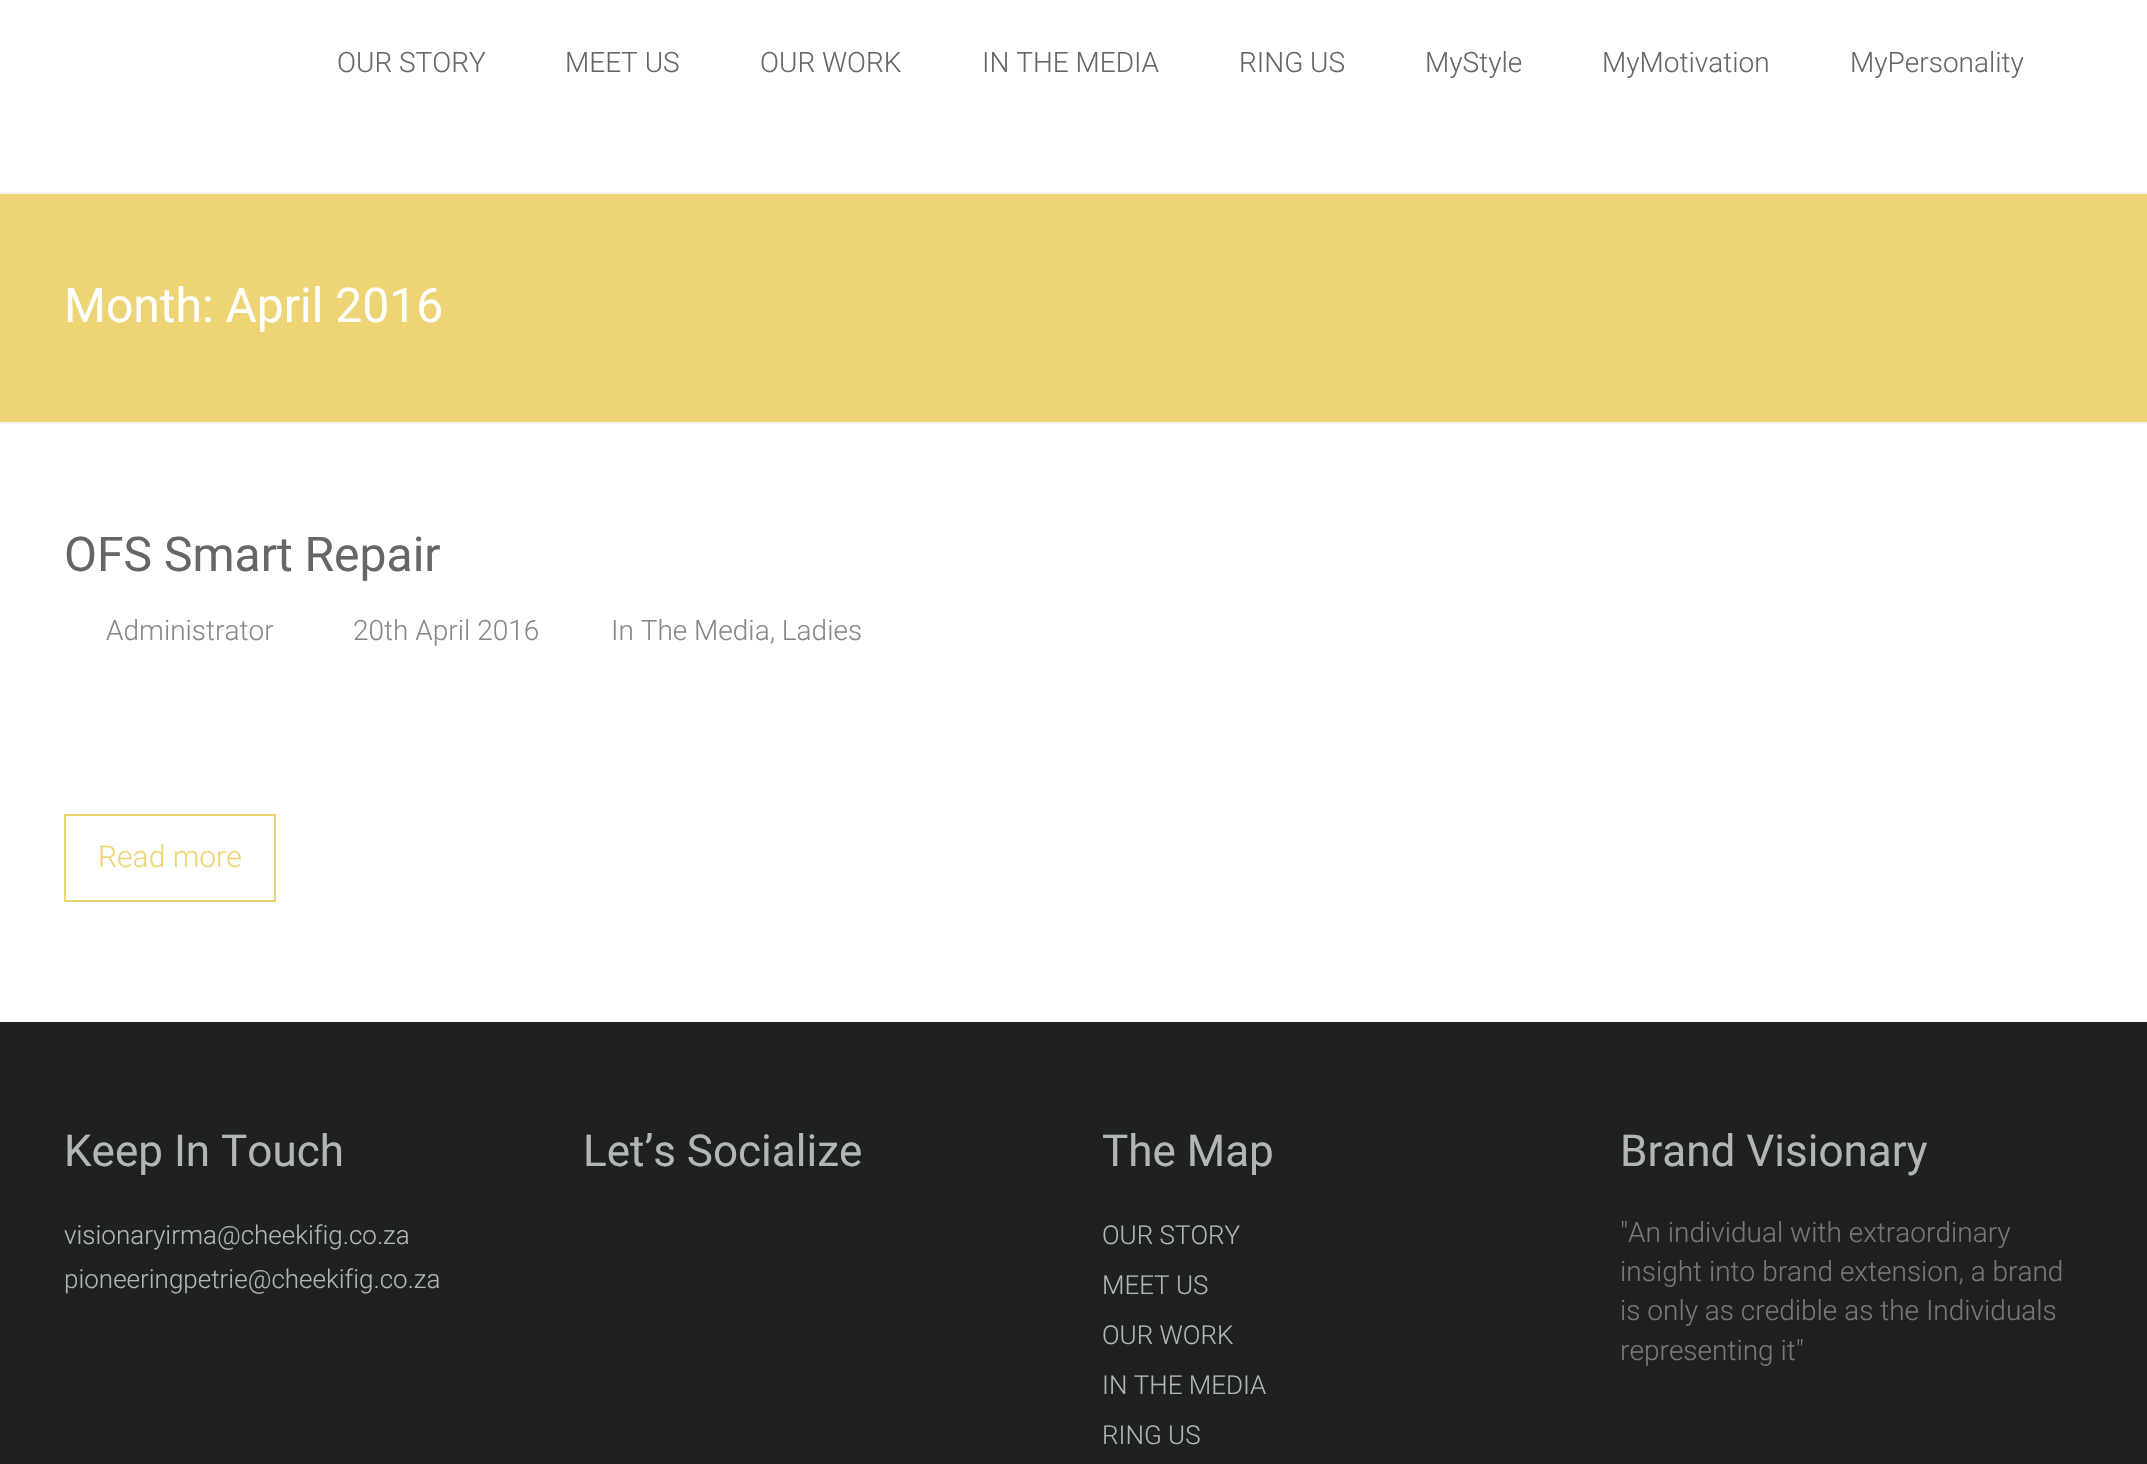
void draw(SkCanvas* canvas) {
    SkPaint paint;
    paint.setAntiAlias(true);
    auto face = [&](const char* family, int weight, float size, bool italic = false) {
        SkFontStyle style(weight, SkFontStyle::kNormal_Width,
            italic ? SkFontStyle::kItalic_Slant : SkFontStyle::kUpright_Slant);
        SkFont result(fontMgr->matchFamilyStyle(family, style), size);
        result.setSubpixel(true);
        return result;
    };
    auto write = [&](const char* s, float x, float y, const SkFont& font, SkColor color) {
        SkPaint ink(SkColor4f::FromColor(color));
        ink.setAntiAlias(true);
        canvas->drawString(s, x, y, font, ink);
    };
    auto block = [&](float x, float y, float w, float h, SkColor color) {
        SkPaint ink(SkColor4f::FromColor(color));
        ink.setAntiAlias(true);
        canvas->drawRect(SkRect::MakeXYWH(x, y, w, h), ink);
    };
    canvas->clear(SK_ColorWHITE);
    block(0, 192, 2147, 2, SkColorSetRGB(242, 242, 242));
    auto kFont1 = face("Roboto", 300, 28);
    write("OUR STORY", 337, 72, kFont1, SkColorSetRGB(102, 102, 102));
    write("MEET US", 565, 72, kFont1, SkColorSetRGB(102, 102, 102));
    write("OUR WORK", 760, 72, kFont1, SkColorSetRGB(102, 102, 102));
    write("IN THE MEDIA", 982, 72, kFont1, SkColorSetRGB(102, 102, 102));
    write("RING US", 1239, 72, kFont1, SkColorSetRGB(102, 102, 102));
    write("MyStyle", 1425, 72, kFont1, SkColorSetRGB(102, 102, 102));
    write("MyMotivation", 1602, 72, kFont1, SkColorSetRGB(102, 102, 102));
    write("MyPersonality", 1850, 72, kFont1, SkColorSetRGB(102, 102, 102));
    block(0, 194, 2147, 228, SkColorSetRGB(237, 213, 117));
    block(0, 422, 2147, 2, SkColorSetRGB(242, 242, 242));
    auto kFont2 = face("Roboto", 400, 48);
    write("Month: April 2016", 64, 322, kFont2, SK_ColorWHITE);
    write("OFS Smart Repair", 64, 571, kFont2, SkColorSetRGB(102, 102, 102));
    write("Administrator", 106, 640, kFont1, SkColorSetRGB(136, 136, 136));
    write("20th April 2016", 353, 640, kFont1, SkColorSetRGB(136, 136, 136));
    write("In The Media, Ladies", 611, 640, kFont1, SkColorSetRGB(136, 136, 136));
    paint.setStyle(SkPaint::kStroke_Style);
    paint.setStrokeWidth(2);
    paint.setColor(SkColorSetRGB(237, 213, 117));
    canvas->drawRect(SkRect::MakeXYWH(65, 815, 210, 86), paint);
    auto kFont3 = face("Roboto", 300, 30);
    write("Read more", 98, 867, kFont3, SkColorSetRGB(237, 213, 117));
    block(0, 1022, 2147, 442, SkColorSetRGB(31, 32, 33));
    auto kFont4 = face("Roboto", 400, 44);
    write("Keep In Touch", 64, 1166, kFont4, SkColorSetRGB(177, 182, 182));
    auto kFont5 = face("Roboto", 300, 26);
    write("visionaryirma@cheekifig.co.za", 64, 1244, kFont5, SkColorSetRGB(177, 182, 182));
    write("pioneeringpetrie@cheekifig.co.za", 64, 1288, kFont5, SkColorSetRGB(177, 182, 182));
    write("Let’s Socialize", 583, 1166, kFont4, SkColorSetRGB(177, 182, 182));
    write("The Map", 1102, 1166, kFont4, SkColorSetRGB(177, 182, 182));
    write("OUR STORY", 1102, 1244, kFont5, SkColorSetRGB(177, 182, 182));
    write("MEET US", 1102, 1294, kFont5, SkColorSetRGB(177, 182, 182));
    write("OUR WORK", 1102, 1344, kFont5, SkColorSetRGB(177, 182, 182));
    write("IN THE MEDIA", 1102, 1394, kFont5, SkColorSetRGB(177, 182, 182));
    write("RING US", 1102, 1444, kFont5, SkColorSetRGB(177, 182, 182));
    write("Brand Visionary", 1620, 1166, kFont4, SkColorSetRGB(177, 182, 182));
    write("\"An individual with extraordinary", 1620, 1242, kFont1, SkColorSetRGB(119, 119, 119));
    write("insight into brand extension, a brand", 1620, 1281, kFont1, SkColorSetRGB(119, 119, 119));
    write("is only as credible as the Individuals", 1620, 1320, kFont1, SkColorSetRGB(119, 119, 119));
    write("representing it\"", 1620, 1360, kFont1, SkColorSetRGB(119, 119, 119));
}
